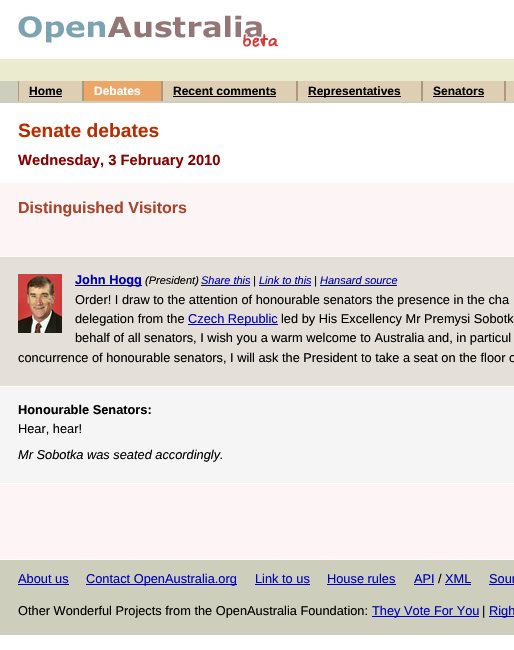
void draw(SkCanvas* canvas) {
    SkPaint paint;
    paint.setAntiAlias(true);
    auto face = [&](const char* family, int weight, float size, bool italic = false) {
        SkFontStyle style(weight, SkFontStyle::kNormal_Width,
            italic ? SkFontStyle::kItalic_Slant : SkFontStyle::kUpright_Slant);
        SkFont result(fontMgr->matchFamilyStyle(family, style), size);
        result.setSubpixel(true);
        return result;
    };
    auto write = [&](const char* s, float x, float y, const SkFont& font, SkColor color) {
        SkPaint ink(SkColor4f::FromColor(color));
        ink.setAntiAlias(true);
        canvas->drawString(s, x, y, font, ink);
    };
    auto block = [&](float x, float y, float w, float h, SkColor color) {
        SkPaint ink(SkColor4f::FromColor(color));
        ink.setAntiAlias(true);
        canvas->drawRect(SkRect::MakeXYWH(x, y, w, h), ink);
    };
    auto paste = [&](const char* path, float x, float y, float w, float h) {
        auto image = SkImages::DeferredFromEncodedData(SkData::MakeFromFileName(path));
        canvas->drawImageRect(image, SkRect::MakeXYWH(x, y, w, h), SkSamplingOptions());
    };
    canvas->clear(SK_ColorWHITE);
    paste("pic1.png", 18, 15, 260, 32);
    block(0, 59, 514, 22, SkColorSetRGB(235, 236, 207));
    block(0, 81, 514, 22, SkColorSetRGB(205, 206, 188));
    block(19, 81, 63, 20, SkColorSetRGB(222, 206, 179));
    block(82, 81, 2, 20, SkColorSetRGB(174, 150, 127));
    block(18, 81, 1, 20, SkColorSetRGB(174, 150, 127));
    auto kFont1 = face("Liberation Sans", 700, 12);
    write("Home", 29, 95, kFont1, SK_ColorBLACK);
    block(29, 96, 33, 1, SK_ColorBLACK);
    block(84, 81, 77, 20, SkColorSetRGB(235, 166, 104));
    block(161, 81, 2, 20, SkColorSetRGB(174, 150, 127));
    write("Debates", 94, 95, kFont1, SK_ColorWHITE);
    block(163, 81, 133, 20, SkColorSetRGB(222, 206, 179));
    block(296, 81, 2, 20, SkColorSetRGB(174, 150, 127));
    write("Recent comments", 173, 95, kFont1, SK_ColorBLACK);
    block(173, 96, 103, 1, SK_ColorBLACK);
    block(298, 81, 123, 20, SkColorSetRGB(222, 206, 179));
    block(421, 81, 2, 20, SkColorSetRGB(174, 150, 127));
    block(308, 96, 93, 1, SK_ColorBLACK);
    write("Representatives", 308, 95, kFont1, SK_ColorBLACK);
    block(423, 81, 81, 20, SkColorSetRGB(222, 206, 179));
    block(504, 81, 2, 20, SkColorSetRGB(174, 150, 127));
    write("Senators", 433, 95, kFont1, SK_ColorBLACK);
    block(433, 96, 51, 1, SK_ColorBLACK);
    block(506, 81, 8, 20, SkColorSetRGB(222, 206, 179));
    auto kFont2 = face("Liberation Sans", 700, 19.25f);
    write("Senate debates", 18, 137, kFont2, SkColorSetRGB(184, 46, 0));
    auto kFont3 = face("Liberation Sans", 700, 14.75f);
    write("Wednesday, 3 February 2010", 18, 165, kFont3, SkColorSetRGB(136, 1, 1));
    block(0, 183, 514, 73, SkColorSetRGB(253, 245, 245));
    auto kFont4 = face("Liberation Sans", 700, 16);
    write("Distinguished Visitors", 18, 213, kFont4, SkColorSetRGB(171, 67, 41));
    block(0, 257, 514, 129, SkColorSetRGB(229, 223, 217));
    paste("pic2.png", 18, 274, 44, 59);
    block(75, 285, 67, 1, SkColorSetRGB(0, 0, 187));
    auto kFont5 = face("Liberation Sans", 700, 12.8f);
    write("John Hogg", 75, 284, kFont5, SkColorSetRGB(0, 0, 187));
    auto kFont6 = face("Liberation Sans", 400, 11, true);
    write("(President)", 145, 284, kFont6, SK_ColorBLACK);
    write("Share this", 201, 284, kFont6, SkColorSetRGB(0, 0, 187));
    block(201, 285, 49, 1, SkColorSetRGB(0, 0, 187));
    write("|", 253, 284, kFont6, SK_ColorBLACK);
    write("Link to this", 259, 284, kFont6, SkColorSetRGB(0, 0, 187));
    block(259, 285, 52, 1, SkColorSetRGB(0, 0, 187));
    write("|", 314, 284, kFont6, SK_ColorBLACK);
    write("Hansard source", 320, 284, kFont6, SkColorSetRGB(0, 0, 187));
    block(320, 285, 77, 1, SkColorSetRGB(0, 0, 187));
    auto kFont7 = face("Liberation Sans", 400, 12.8f);
    write("Order! I draw to the attention of honourable senators the presence in the cha", 75, 304, kFont7, SK_ColorBLACK);
    write("delegation from the", 75, 323, kFont7, SK_ColorBLACK);
    block(188, 324, 90, 1, SkColorSetRGB(0, 0, 187));
    write("Czech Republic", 188, 323, kFont7, SkColorSetRGB(0, 0, 187));
    write("led by His Excellency Mr Premysi Sobotk", 281, 323, kFont7, SK_ColorBLACK);
    write("behalf of all senators, I wish you a warm welcome to Australia and, in particul", 75, 342, kFont7, SK_ColorBLACK);
    write("concurrence of honourable senators, I will ask the President to take a seat on the floor o", 18, 362, kFont7, SK_ColorBLACK);
    block(0, 387, 514, 96, SkColorSetRGB(245, 245, 245));
    write("Honourable Senators:", 18, 414, kFont5, SK_ColorBLACK);
    write("Hear, hear!", 18, 433, kFont7, SK_ColorBLACK);
    auto kFont8 = face("Liberation Sans", 400, 12.8f, true);
    write("Mr Sobotka was seated accordingly.", 18, 459, kFont8, SK_ColorBLACK);
    block(0, 484, 514, 75, SkColorSetRGB(253, 245, 245));
    block(0, 560, 514, 75, SkColorSetRGB(205, 206, 188));
    write("About us", 18, 583, kFont7, SkColorSetRGB(0, 0, 187));
    block(18, 584, 51, 1, SkColorSetRGB(0, 0, 187));
    block(86, 584, 151, 1, SkColorSetRGB(0, 0, 187));
    write("Contact OpenAustralia.org", 86, 583, kFont7, SkColorSetRGB(0, 0, 187));
    write("Link to us", 255, 583, kFont7, SkColorSetRGB(0, 0, 187));
    block(255, 584, 55, 1, SkColorSetRGB(0, 0, 187));
    write("House rules", 327, 583, kFont7, SkColorSetRGB(0, 0, 187));
    block(327, 584, 69, 1, SkColorSetRGB(0, 0, 187));
    write("API", 414, 583, kFont7, SkColorSetRGB(0, 0, 187));
    block(414, 584, 20, 1, SkColorSetRGB(0, 0, 187));
    write("/", 438, 583, kFont7, SK_ColorBLACK);
    write("XML", 445, 583, kFont7, SkColorSetRGB(0, 0, 187));
    block(445, 584, 26, 1, SkColorSetRGB(0, 0, 187));
    write("Sour", 489, 583, kFont7, SkColorSetRGB(0, 0, 187));
    block(489, 584, 25, 1, SkColorSetRGB(0, 0, 187));
    write("Other Wonderful Projects from the OpenAustralia Foundation:", 18, 615, kFont7, SK_ColorBLACK);
    block(372, 616, 107, 1, SkColorSetRGB(0, 0, 187));
    write("They Vote For You", 372, 615, kFont7, SkColorSetRGB(0, 0, 187));
    write("|", 482, 615, kFont7, SK_ColorBLACK);
    block(489, 616, 25, 1, SkColorSetRGB(0, 0, 187));
    write("Righ", 489, 615, kFont7, SkColorSetRGB(0, 0, 187));
}
